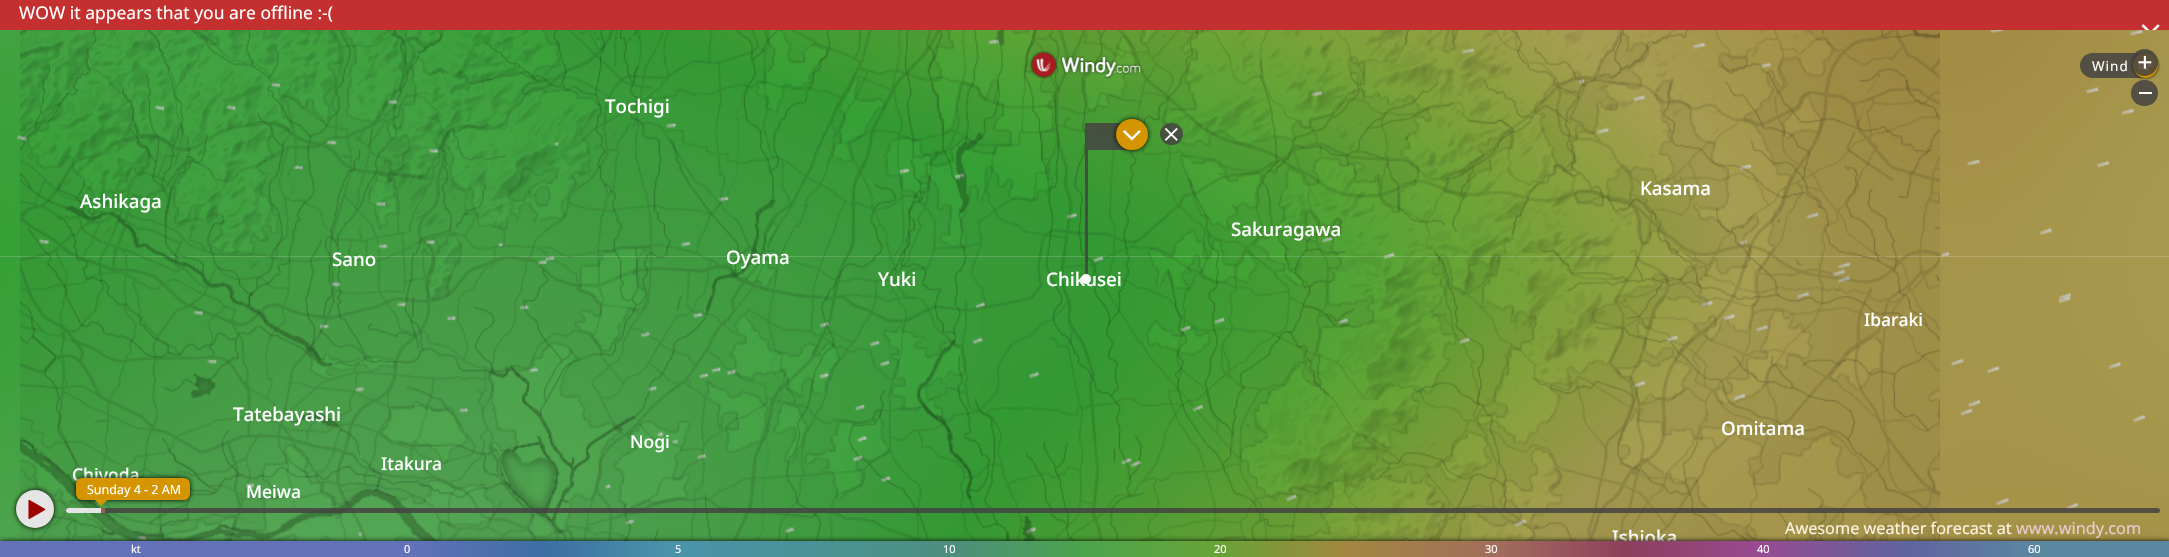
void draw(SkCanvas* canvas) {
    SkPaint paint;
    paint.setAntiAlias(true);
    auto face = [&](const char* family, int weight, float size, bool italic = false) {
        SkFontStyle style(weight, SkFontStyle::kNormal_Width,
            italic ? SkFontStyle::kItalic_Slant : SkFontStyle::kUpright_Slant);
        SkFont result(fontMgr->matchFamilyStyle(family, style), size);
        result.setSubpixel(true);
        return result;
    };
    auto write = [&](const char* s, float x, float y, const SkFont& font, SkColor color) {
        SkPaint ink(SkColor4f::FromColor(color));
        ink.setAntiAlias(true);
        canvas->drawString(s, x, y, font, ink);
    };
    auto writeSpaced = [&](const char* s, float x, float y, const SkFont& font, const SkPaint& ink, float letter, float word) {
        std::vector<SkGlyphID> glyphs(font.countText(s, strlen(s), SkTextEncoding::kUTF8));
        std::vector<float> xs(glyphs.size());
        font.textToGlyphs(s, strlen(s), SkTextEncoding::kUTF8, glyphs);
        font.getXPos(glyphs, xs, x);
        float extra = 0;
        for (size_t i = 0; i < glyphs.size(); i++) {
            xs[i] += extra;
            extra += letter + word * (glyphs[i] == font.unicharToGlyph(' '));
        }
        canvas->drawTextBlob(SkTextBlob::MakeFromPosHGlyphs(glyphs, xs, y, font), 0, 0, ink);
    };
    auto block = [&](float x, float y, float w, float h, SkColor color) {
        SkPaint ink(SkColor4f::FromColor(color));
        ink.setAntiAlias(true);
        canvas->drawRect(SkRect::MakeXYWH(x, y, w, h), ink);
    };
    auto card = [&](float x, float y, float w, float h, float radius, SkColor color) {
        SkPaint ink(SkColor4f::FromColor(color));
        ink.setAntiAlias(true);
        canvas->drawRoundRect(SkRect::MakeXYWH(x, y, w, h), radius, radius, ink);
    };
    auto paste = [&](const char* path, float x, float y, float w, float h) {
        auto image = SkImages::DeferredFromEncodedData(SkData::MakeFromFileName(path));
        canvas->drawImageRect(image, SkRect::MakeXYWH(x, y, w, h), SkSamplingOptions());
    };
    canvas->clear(SK_ColorWHITE);
    block(0, 0, 2169, 30, SkColorSetRGB(196, 47, 47));
    auto kFont1 = face("Noto Sans", 400, 17.5f);
    write("WOW it appears that you are offline :-(", 19, 19, kFont1, SK_ColorWHITE);
    paste("pic1.png", 2141, 24, 19, 6);
    paste("pic10.png", 980, 30, 320, 227);
    paste("pic6.png", 0, 30, 20, 227);
    paste("pic7.png", 20, 30, 320, 227);
    paste("pic8.png", 340, 30, 320, 227);
    paste("pic9.png", 660, 30, 320, 227);
    paste("pic11.png", 1300, 30, 320, 227);
    paste("pic12.png", 1620, 30, 320, 227);
    paste("pic13.png", 1940, 30, 229, 227);
    paste("pic14.png", 0, 256, 20, 285);
    paste("pic15.png", 20, 256, 320, 285);
    paste("pic16.png", 340, 256, 320, 285);
    paste("pic17.png", 660, 256, 320, 285);
    paste("pic18.png", 980, 256, 320, 285);
    paste("pic19.png", 1300, 256, 320, 285);
    paste("pic20.png", 1620, 256, 320, 285);
    paste("pic21.png", 1940, 256, 229, 285);
    paste("pic22.png", 17, 30, 2129, 511);
    paste("pic26.png", 980, 30, 320, 226);
    paste("pic2.png", 1029, 50, 29, 29);
    paste("pic3.png", 1060, 55, 83, 24);
    card(2080, 53, 78, 25, 12.5f, SkColorSetARGB(214, 68, 65, 65));
    auto kFont2 = face("Noto Sans", 400, 13.5f);
    paint.setColor(SK_ColorWHITE);
    writeSpaced("Wind", 2092, 71, kFont2, paint, 1, 0);
    paint.setColor(SK_ColorBLACK);
    paint.setMaskFilter(SkMaskFilter::MakeBlur(kNormal_SkBlurStyle, 1.5f));
    canvas->drawRoundRect(SkRect::MakeXYWH(2133, 53, 25, 25), 12.5f, 12.5f, paint);
    paint.setMaskFilter(nullptr);
    paint.setColor(SkColorSetRGB(212, 149, 0));
    canvas->drawCircle(2145.5f, 65.5f, 12.5f, paint);
    paste("pic4.png", 2137, 61, 15, 10);
    paint.setColor(SkColorSetARGB(214, 68, 65, 65));
    canvas->drawCircle(2144.5f, 62.5f, 13.5f, paint);
    paste("pic5.png", 2138, 55, 14, 14);
    card(2131, 80, 27, 26, 13, SkColorSetARGB(214, 68, 65, 65));
    block(2139, 92, 13, 2, SK_ColorWHITE);
    paste("pic23.png", 20, 30, 320, 226);
    paste("pic24.png", 340, 30, 320, 226);
    paste("pic25.png", 660, 30, 320, 226);
    paste("pic27.png", 1300, 30, 320, 226);
    paste("pic28.png", 1620, 30, 320, 226);
    paste("pic29.png", 20, 256, 320, 285);
    paste("pic30.png", 340, 256, 320, 285);
    paste("pic31.png", 660, 256, 320, 285);
    paste("pic32.png", 980, 256, 320, 285);
    paste("pic33.png", 1300, 256, 320, 285);
    paste("pic34.png", 1620, 256, 320, 285);
    auto kFont3 = face("Noto Sans", 500, 18.75f);
    write("Tochigi", 605, 113, kFont3, SK_ColorWHITE);
    write("Kasama", 1640, 195, kFont3, SK_ColorWHITE);
    write("Ashikaga", 80, 208, kFont3, SK_ColorWHITE);
    write("Sakuragawa", 1231, 236, kFont3, SK_ColorWHITE);
    write("Sano", 332, 266, kFont3, SK_ColorWHITE);
    auto kFont4 = face("Noto Sans", 500, 17.5f);
    write("Nogi", 630, 448, kFont4, SK_ColorWHITE);
    write("Itakura", 381, 470, kFont4, SK_ColorWHITE);
    write("Oyama", 726, 264, kFont3, SK_ColorWHITE);
    write("Yuki", 878, 286, kFont3, SK_ColorWHITE);
    write("Chikusei", 1046, 286, kFont3, SK_ColorWHITE);
    write("Tatebayashi", 233, 421, kFont3, SK_ColorWHITE);
    write("Chiyoda", 72, 481, kFont4, SK_ColorWHITE);
    write("Meiwa", 246, 498, kFont4, SK_ColorWHITE);
    write("Ibaraki", 1864, 326, kFont4, SK_ColorWHITE);
    write("Omitama", 1721, 435, kFont3, SK_ColorWHITE);
    write("Ishioka", 1612, 544, kFont3, SK_ColorWHITE);
    block(1085, 123, 3, 156, SkColorSetARGB(214, 68, 65, 65));
    paint.setColor(SK_ColorWHITE);
    canvas->drawCircle(1086, 279, 5, paint);
    paint.setColor(SkColorSetARGB(214, 68, 65, 65));
    canvas->drawPath(SkPathBuilder().moveTo(1088, 123).lineTo(1124.5f, 123).cubicTo(1132, 123, 1138, 129, 1138, 136.5f).cubicTo(1138, 144, 1132, 150, 1124.5f, 150).lineTo(1088, 150).close().detach(), paint);
    paint.setColor(SK_ColorBLACK);
    paint.setMaskFilter(SkMaskFilter::MakeBlur(kNormal_SkBlurStyle, 2.5f));
    canvas->drawRoundRect(SkRect::MakeXYWH(1116, 119, 32, 31), 15.5f, 15.5f, paint);
    paint.setMaskFilter(nullptr);
    card(1116, 119, 32, 31, 15.5f, SkColorSetRGB(212, 149, 0));
    paste("pic35.png", 1123, 130, 18, 11);
    card(1160, 123, 23, 22, 11, SkColorSetARGB(214, 68, 65, 65));
    paste("pic36.png", 1164, 127, 14, 14);
    paint.setMaskFilter(SkMaskFilter::MakeBlur(kNormal_SkBlurStyle, 2.5f));
    canvas->drawRoundRect(SkRect::MakeXYWH(16, 490, 38, 38), 19, 19, paint);
    paint.setMaskFilter(nullptr);
    paint.setColor(SkColorSetRGB(229, 229, 229));
    canvas->drawCircle(35, 509, 19, paint);
    paste("pic37.png", 28, 499, 18, 21);
    paint.setColor(SK_ColorBLACK);
    paint.setMaskFilter(SkMaskFilter::MakeBlur(kNormal_SkBlurStyle, 2.5f));
    canvas->drawRoundRect(SkRect::MakeXYWH(76, 478, 114, 22), 6, 6, paint);
    paint.setMaskFilter(nullptr);
    card(76, 478, 114, 22, 6, SkColorSetRGB(212, 149, 0));
    auto kFont5 = face("Noto Sans", 400, 12.5f);
    write("Sunday 4 - 2 AM", 87, 494, kFont5, SK_ColorWHITE);
    paint.setColor(SkColorSetRGB(212, 149, 0));
    canvas->drawPath(SkPathBuilder().moveTo(95, 500).lineTo(107.5f, 500).lineTo(101, 506).close().detach(), paint);
    card(66, 508, 2094, 5, 2.5f, SkColorSetARGB(214, 68, 65, 65));
    paint.setColor(SkColorSetRGB(229, 229, 229));
    canvas->drawPath(SkPathBuilder().moveTo(68.5f, 508).lineTo(101, 508).lineTo(101, 513).lineTo(68.5f, 513).cubicTo(67, 513, 66, 512, 66, 510.5f).cubicTo(66, 509, 67, 508, 68.5f, 508).close().detach(), paint);
    block(101, 508, 4, 5, SkColorSetRGB(148, 96, 81));
    paint.setColor(SK_ColorBLACK);
    paint.setMaskFilter(SkMaskFilter::MakeBlur(kNormal_SkBlurStyle, 2.5f));
    canvas->drawRect(SkRect::MakeXYWH(0, 541, 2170, 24), paint);
    paint.setMaskFilter(nullptr);
    auto kFont6 = face("Noto Sans", 400, 16.25f);
    write("Awesome weather forecast at", 1785, 534, kFont6, SkColorSetRGB(255, 243, 225));
    write("www.windy.com", 2016, 534, kFont6, SkColorSetRGB(230, 206, 206));
    {
        const SkColor colors[] = {SkColorSetRGB(98, 113, 184), SkColorSetRGB(98, 113, 184), SkColorSetRGB(61, 110, 163), SkColorSetRGB(74, 148, 170), SkColorSetRGB(74, 146, 148), SkColorSetRGB(77, 142, 124), SkColorSetRGB(76, 164, 76), SkColorSetRGB(103, 164, 54), SkColorSetRGB(162, 135, 64), SkColorSetRGB(162, 109, 92), SkColorSetRGB(141, 63, 92), SkColorSetRGB(151, 75, 145), SkColorSetRGB(95, 100, 160), SkColorSetRGB(91, 136, 161), SkColorSetRGB(91, 136, 161)};
        const float stops[] = {0, 0.19f, 0.25f, 0.31f, 0.38f, 0.44f, 0.5f, 0.56f, 0.62f, 0.69f, 0.75f, 0.81f, 0.88f, 0.94f, 1};
        const SkPoint ends[] = {{0, 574}, {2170, 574}};
        paint.setShader(SkGradientShader::MakeLinear(ends, colors, stops, 15, SkTileMode::kClamp));
        paint.setAlpha(255);
    }
    canvas->drawRect(SkRect::MakeXYWH(0, 541, 2169, 16), paint);
    auto kFont7 = face("Noto Sans", 400, 11);
    write("kt", 131, 553, kFont7, SK_ColorWHITE);
    write("0", 404, 553, kFont7, SK_ColorWHITE);
    write("5", 675, 553, kFont7, SK_ColorWHITE);
    write("10", 943, 553, kFont7, SK_ColorWHITE);
    write("20", 1214, 553, kFont7, SK_ColorWHITE);
    write("30", 1485, 553, kFont7, SK_ColorWHITE);
    write("40", 1757, 553, kFont7, SK_ColorWHITE);
    write("60", 2028, 553, kFont7, SK_ColorWHITE);
}
